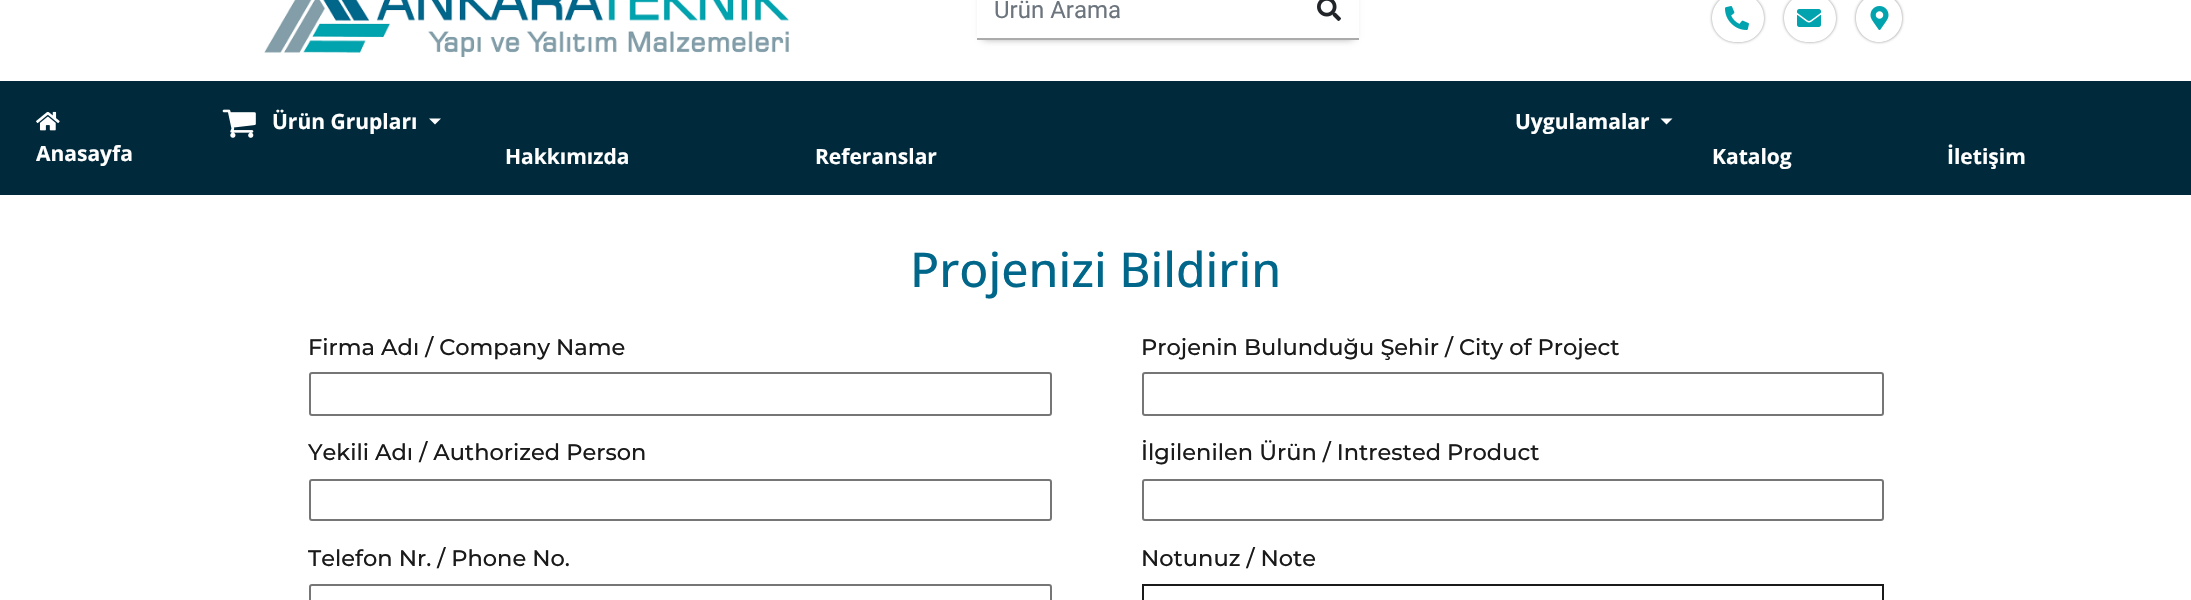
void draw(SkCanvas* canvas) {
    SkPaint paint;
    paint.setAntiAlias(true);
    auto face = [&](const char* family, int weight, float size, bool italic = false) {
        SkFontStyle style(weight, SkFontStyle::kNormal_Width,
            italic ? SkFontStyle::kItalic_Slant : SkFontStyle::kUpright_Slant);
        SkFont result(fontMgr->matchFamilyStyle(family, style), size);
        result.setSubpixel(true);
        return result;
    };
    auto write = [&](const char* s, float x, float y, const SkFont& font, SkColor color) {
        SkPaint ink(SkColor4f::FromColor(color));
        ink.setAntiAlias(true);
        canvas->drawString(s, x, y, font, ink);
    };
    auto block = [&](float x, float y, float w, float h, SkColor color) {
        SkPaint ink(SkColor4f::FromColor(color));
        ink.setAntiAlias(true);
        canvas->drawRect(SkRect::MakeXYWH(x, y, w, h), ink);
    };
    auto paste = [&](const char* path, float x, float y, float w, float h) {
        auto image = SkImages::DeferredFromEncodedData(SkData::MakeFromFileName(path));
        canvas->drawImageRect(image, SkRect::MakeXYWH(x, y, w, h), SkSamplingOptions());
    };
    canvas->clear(SK_ColorWHITE);
    paste("pic1.png", 264, 0, 525, 57);
    canvas->save();
    canvas->clipPath(SkPathBuilder(SkPathFillType::kEvenOdd).moveTo(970, 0).lineTo(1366, 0).lineTo(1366, 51).lineTo(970, 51).close().moveTo(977, -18).lineTo(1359, -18).lineTo(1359, 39).lineTo(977, 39).close().detach(), true);
    paint.setColor(SkColorSetARGB(122, 0, 0, 0));
    paint.setMaskFilter(SkMaskFilter::MakeBlur(kNormal_SkBlurStyle, 4));
    canvas->drawRect(SkRect::MakeXYWH(983, -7, 370, 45), paint);
    paint.setMaskFilter(nullptr);
    canvas->restore();
    block(977, 38, 382, 2, SkColorSetRGB(171, 171, 171));
    auto kFont1 = face("Roboto", 400, 24);
    write("Ürün Arama", 994, 18, kFont1, SkColorSetRGB(108, 117, 125));
    paste("pic2.png", 1317, 0, 24, 21);
    canvas->save();
    canvas->clipPath(SkPathBuilder(SkPathFillType::kEvenOdd).moveTo(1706, 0).lineTo(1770, 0).lineTo(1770, 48).lineTo(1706, 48).close().moveTo(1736, -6).lineTo(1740, -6).cubicTo(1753.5f, -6, 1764, 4.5f, 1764, 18).cubicTo(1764, 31.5f, 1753.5f, 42, 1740, 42).lineTo(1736, 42).cubicTo(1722.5f, 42, 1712, 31.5f, 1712, 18).cubicTo(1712, 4.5f, 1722.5f, -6, 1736, -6).close().detach(), true);
    paint.setColor(SkColorSetRGB(136, 136, 136));
    paint.setMaskFilter(SkMaskFilter::MakeBlur(kNormal_SkBlurStyle, 1.5f));
    canvas->drawRoundRect(SkRect::MakeXYWH(1712, -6, 52, 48), 24, 24, paint);
    paint.setMaskFilter(nullptr);
    canvas->restore();
    paste("pic3.png", 1725, 6, 24, 24);
    canvas->save();
    canvas->clipPath(SkPathBuilder(SkPathFillType::kEvenOdd).moveTo(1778, 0).lineTo(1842, 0).lineTo(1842, 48).lineTo(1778, 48).close().moveTo(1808, -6).lineTo(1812, -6).cubicTo(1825.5f, -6, 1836, 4.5f, 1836, 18).cubicTo(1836, 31.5f, 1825.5f, 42, 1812, 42).lineTo(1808, 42).cubicTo(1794.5f, 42, 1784, 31.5f, 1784, 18).cubicTo(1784, 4.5f, 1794.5f, -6, 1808, -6).close().detach(), true);
    paint.setMaskFilter(SkMaskFilter::MakeBlur(kNormal_SkBlurStyle, 1.5f));
    canvas->drawRoundRect(SkRect::MakeXYWH(1784, -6, 52, 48), 24, 24, paint);
    paint.setMaskFilter(nullptr);
    canvas->restore();
    paste("pic4.png", 1797, 9, 24, 18);
    canvas->save();
    canvas->clipPath(SkPathBuilder(SkPathFillType::kEvenOdd).moveTo(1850, 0).lineTo(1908, 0).lineTo(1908, 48).lineTo(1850, 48).close().moveTo(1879, -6).cubicTo(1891.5f, -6, 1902, 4.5f, 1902, 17).lineTo(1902, 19).cubicTo(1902, 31.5f, 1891.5f, 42, 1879, 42).cubicTo(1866.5f, 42, 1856, 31.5f, 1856, 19).lineTo(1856, 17).cubicTo(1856, 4.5f, 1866.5f, -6, 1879, -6).close().detach(), true);
    paint.setMaskFilter(SkMaskFilter::MakeBlur(kNormal_SkBlurStyle, 1.5f));
    canvas->drawRoundRect(SkRect::MakeXYWH(1856, -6, 46, 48), 23, 23, paint);
    paint.setMaskFilter(nullptr);
    canvas->restore();
    paste("pic5.png", 1870, 6, 19, 24);
    block(0, 81, 2191, 114, SkColorSetRGB(0, 41, 59));
    paste("pic6.png", 222, 109, 34, 29);
    auto kFont2 = face("Open Sans", 700, 21);
    write("Ürün Grupları", 272, 129, kFont2, SK_ColorWHITE);
    paint.setColor(SK_ColorWHITE);
    canvas->drawPath(SkPathBuilder().moveTo(429, 118.5f).lineTo(441, 118.5f).lineTo(435, 124.5f).close().detach(), paint);
    write("Uygulamalar", 1515, 129, kFont2, SK_ColorWHITE);
    canvas->drawPath(SkPathBuilder().moveTo(1660.5f, 118.5f).lineTo(1672.5f, 118.5f).lineTo(1666.5f, 124.5f).close().detach(), paint);
    paste("pic7.png", 36, 111, 24, 20);
    write("Anasayfa", 36, 161, kFont2, SK_ColorWHITE);
    write("Hakkımızda", 505, 164, kFont2, SK_ColorWHITE);
    write("Referanslar", 815, 164, kFont2, SK_ColorWHITE);
    write("Katalog", 1712, 164, kFont2, SK_ColorWHITE);
    write("İletişim", 1947, 164, kFont2, SK_ColorWHITE);
    auto kFont3 = face("Open Sans", 500, 48);
    write("Projenizi Bildirin", 910, 287, kFont3, SkColorSetRGB(0, 102, 138));
    auto kFont4 = face("Montserrat", 500, 22.5f);
    write("Firma Adı / Company Name", 308, 355, kFont4, SkColorSetRGB(26, 26, 26));
    paint.setStyle(SkPaint::kStroke_Style);
    paint.setStrokeWidth(2);
    paint.setColor(SkColorSetRGB(118, 118, 118));
    canvas->drawRoundRect(SkRect::MakeXYWH(310, 373, 741, 42), 2, 2, paint);
    write("Yekili Adı / Authorized Person", 308, 460, kFont4, SkColorSetRGB(26, 26, 26));
    canvas->drawRoundRect(SkRect::MakeXYWH(310, 480, 741, 40), 2, 2, paint);
    write("Telefon Nr. / Phone No.", 308, 566, kFont4, SkColorSetRGB(26, 26, 26));
    canvas->drawRoundRect(SkRect::MakeXYWH(310, 585, 741, 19), 2, 2, paint);
    write("Projenin Bulunduğu Şehir / City of Project", 1141, 355, kFont4, SkColorSetRGB(26, 26, 26));
    canvas->drawRoundRect(SkRect::MakeXYWH(1143, 373, 740, 42), 2, 2, paint);
    write("İlgilenilen Ürün / Intrested Product", 1141, 460, kFont4, SkColorSetRGB(26, 26, 26));
    canvas->drawRoundRect(SkRect::MakeXYWH(1143, 480, 740, 40), 2, 2, paint);
    write("Notunuz / Note", 1141, 566, kFont4, SkColorSetRGB(26, 26, 26));
    paint.setColor(SkColorSetRGB(26, 26, 26));
    canvas->drawRect(SkRect::MakeXYWH(1143, 585, 740, 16), paint);
}
